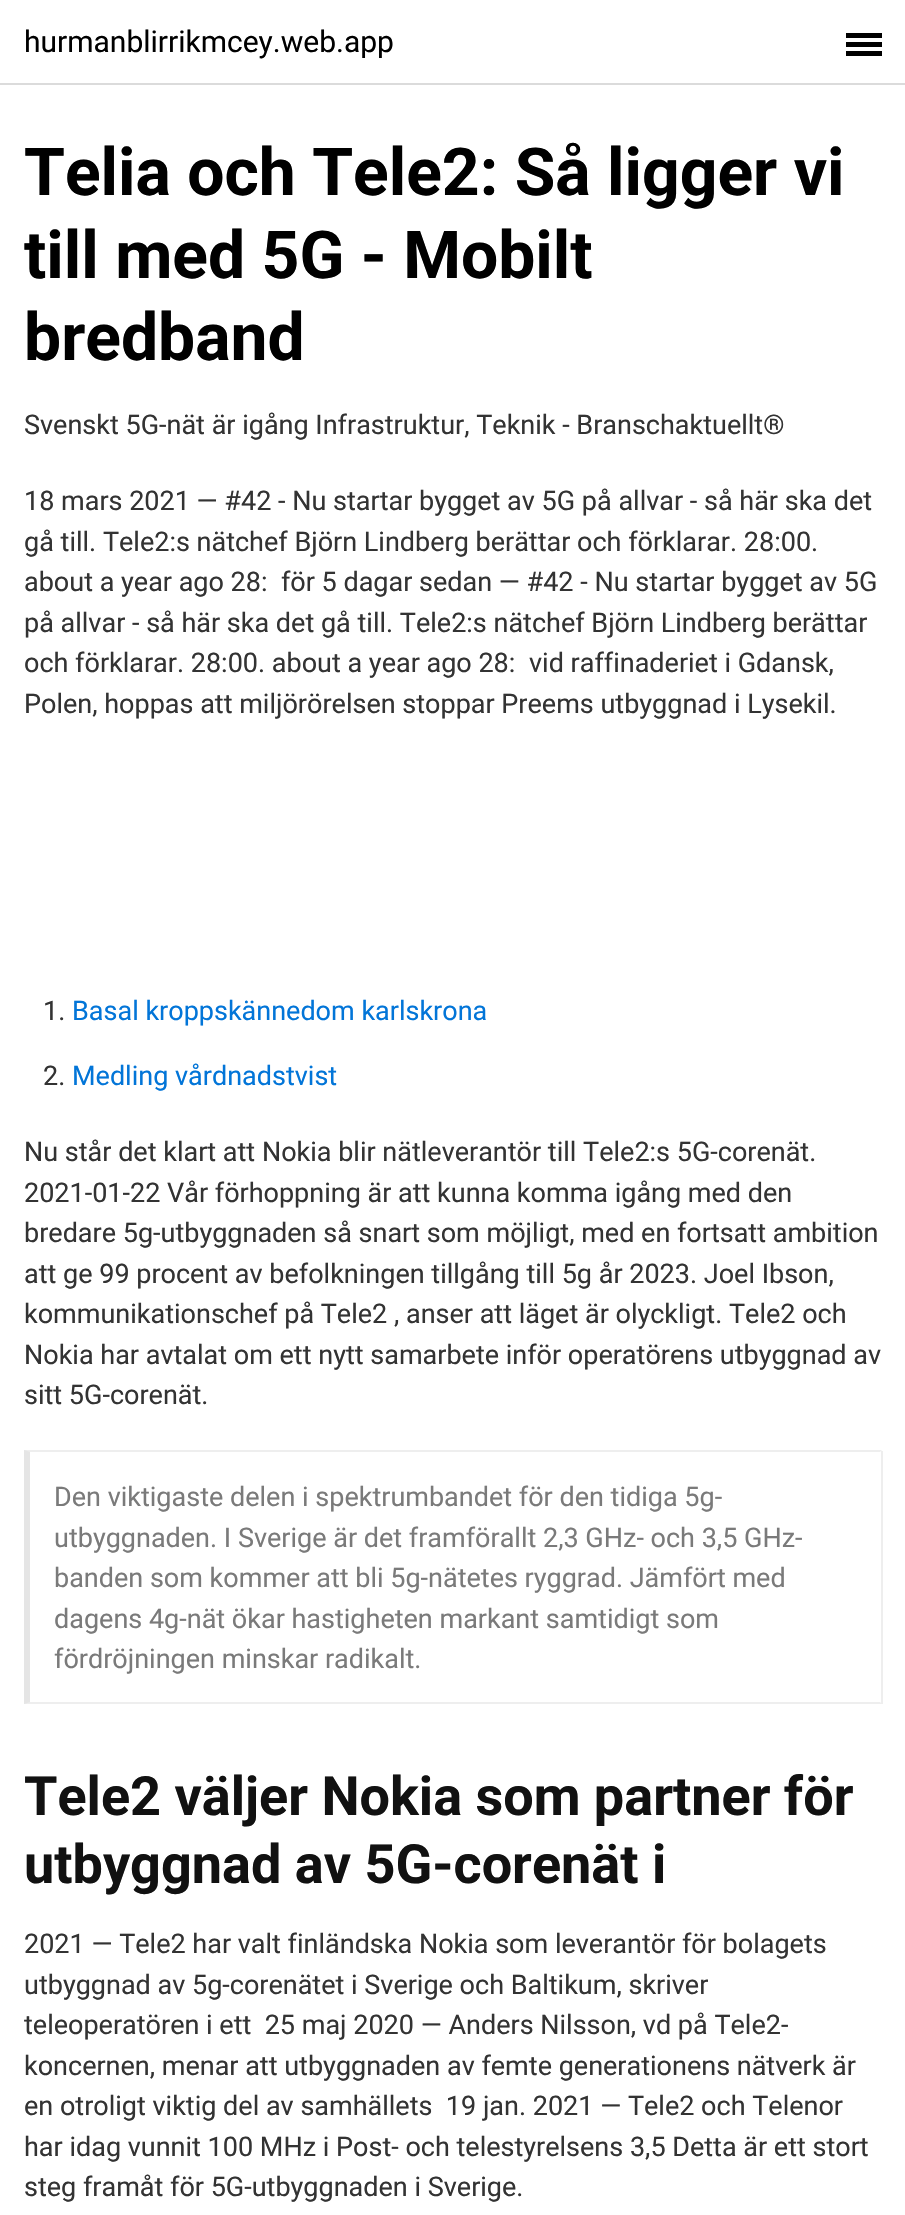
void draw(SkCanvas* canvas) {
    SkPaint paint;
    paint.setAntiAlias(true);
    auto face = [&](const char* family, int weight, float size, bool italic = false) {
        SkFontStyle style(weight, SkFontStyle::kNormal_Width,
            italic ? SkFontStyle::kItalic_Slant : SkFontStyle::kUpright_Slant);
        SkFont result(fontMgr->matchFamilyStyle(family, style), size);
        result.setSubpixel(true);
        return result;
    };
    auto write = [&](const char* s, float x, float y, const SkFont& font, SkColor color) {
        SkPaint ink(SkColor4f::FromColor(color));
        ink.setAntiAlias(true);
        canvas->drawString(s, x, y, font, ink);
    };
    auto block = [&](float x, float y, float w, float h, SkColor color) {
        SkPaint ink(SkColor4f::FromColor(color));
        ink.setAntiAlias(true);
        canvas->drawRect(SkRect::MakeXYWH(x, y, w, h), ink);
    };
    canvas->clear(SK_ColorWHITE);
    block(0, 83, 905, 2, SkColorSetRGB(219, 219, 219));
    auto kFont1 = face("Roboto", 400, 30);
    write("hurmanblirrikmcey.web.app", 24, 52, kFont1, SK_ColorBLACK);
    block(846, 42, 36, 5, SK_ColorBLACK);
    block(846, 33, 36, 5, SK_ColorBLACK);
    block(846, 51, 36, 5, SK_ColorBLACK);
    auto kFont2 = face("Roboto", 700, 66);
    write("Telia och Tele2: Så ligger vi", 24, 195, kFont2, SK_ColorBLACK);
    write("till med 5G - Mobilt", 24, 278, kFont2, SK_ColorBLACK);
    write("bredband", 24, 360, kFont2, SK_ColorBLACK);
    auto kFont3 = face("Roboto", 400, 27);
    write("Svenskt 5G-nät är igång Infrastruktur, Teknik - Branschaktuellt®", 24, 434, kFont3, SkColorSetRGB(51, 51, 51));
    write("18 mars 2021 — #42 - Nu startar bygget av 5G på allvar - så här ska det", 24, 510, kFont3, SkColorSetRGB(51, 51, 51));
    write("gå till. Tele2:s nätchef Björn Lindberg berättar och förklarar. 28:00.", 24, 551, kFont3, SkColorSetRGB(51, 51, 51));
    write("about a year ago 28:  för 5 dagar sedan — #42 - Nu startar bygget av 5G", 24, 591, kFont3, SkColorSetRGB(51, 51, 51));
    write("på allvar - så här ska det gå till. Tele2:s nätchef Björn Lindberg berättar", 24, 632, kFont3, SkColorSetRGB(51, 51, 51));
    write("och förklarar. 28:00. about a year ago 28:", 24, 672, kFont3, SkColorSetRGB(51, 51, 51));
    write("vid raffinaderiet i Gdansk,", 529, 672, kFont3, SkColorSetRGB(51, 51, 51));
    write("Polen, hoppas att miljörörelsen stoppar Preems utbyggnad i Lysekil.", 24, 713, kFont3, SkColorSetRGB(51, 51, 51));
    write("1.", 43, 1020, kFont3, SkColorSetRGB(51, 51, 51));
    write("Basal kroppskännedom karlskrona", 72, 1020, kFont3, SkColorSetRGB(2, 117, 216));
    write("2.", 43, 1085, kFont3, SkColorSetRGB(51, 51, 51));
    write("Medling vårdnadstvist", 72, 1085, kFont3, SkColorSetRGB(2, 117, 216));
    write("Nu står det klart att Nokia blir nätleverantör till Tele2:s 5G-corenät.", 24, 1161, kFont3, SkColorSetRGB(51, 51, 51));
    write("2021-01-22 Vår förhoppning är att kunna komma igång med den", 24, 1202, kFont3, SkColorSetRGB(51, 51, 51));
    write("bredare 5g-utbyggnaden så snart som möjligt, med en fortsatt ambition", 24, 1242, kFont3, SkColorSetRGB(51, 51, 51));
    write("att ge 99 procent av befolkningen tillgång till 5g år 2023. Joel Ibson,", 24, 1283, kFont3, SkColorSetRGB(51, 51, 51));
    write("kommunikationschef på Tele2 , anser att läget är olyckligt. Tele2 och", 24, 1323, kFont3, SkColorSetRGB(51, 51, 51));
    write("Nokia har avtalat om ett nytt samarbete inför operatörens utbyggnad av", 24, 1364, kFont3, SkColorSetRGB(51, 51, 51));
    write("sitt 5G-corenät.", 24, 1404, kFont3, SkColorSetRGB(51, 51, 51));
    paint.setColor(SkColorSetRGB(238, 238, 238));
    canvas->drawPath(SkPathBuilder().moveTo(24, 1450).lineTo(882, 1450).lineTo(880, 1452).lineTo(30, 1452).close().detach(), paint);
    block(881, 1451, 2, 253, SkColorSetRGB(238, 238, 238));
    canvas->drawPath(SkPathBuilder().moveTo(882, 1704).lineTo(24, 1704).lineTo(30, 1702).lineTo(880, 1702).close().detach(), paint);
    paint.setColor(SkColorSetARGB(26, 0, 0, 0));
    canvas->drawPath(SkPathBuilder().moveTo(24, 1704).lineTo(24, 1450).lineTo(30, 1452).lineTo(30, 1702).close().detach(), paint);
    write("Den viktigaste delen i spektrumbandet för den tidiga 5g-", 54, 1506, kFont3, SkColorSetRGB(122, 122, 122));
    write("utbyggnaden. I Sverige är det framförallt 2,3 GHz- och 3,5 GHz-", 54, 1547, kFont3, SkColorSetRGB(122, 122, 122));
    write("banden som kommer att bli 5g-nätetes ryggrad. Jämfört med", 54, 1587, kFont3, SkColorSetRGB(122, 122, 122));
    write("dagens 4g-nät ökar hastigheten markant samtidigt som", 54, 1628, kFont3, SkColorSetRGB(122, 122, 122));
    write("fördröjningen minskar radikalt.", 54, 1668, kFont3, SkColorSetRGB(122, 122, 122));
    auto kFont4 = face("Roboto", 700, 54);
    write("Tele2 väljer Nokia som partner för", 24, 1815, kFont4, SkColorSetRGB(17, 17, 17));
    write("utbyggnad av 5G-corenät i", 24, 1883, kFont4, SkColorSetRGB(17, 17, 17));
    write("2021 — Tele2 har valt finländska Nokia som leverantör för bolagets", 24, 1953, kFont3, SkColorSetRGB(51, 51, 51));
    write("utbyggnad av 5g-corenätet i Sverige och Baltikum, skriver", 24, 1994, kFont3, SkColorSetRGB(51, 51, 51));
    write("teleoperatören i ett  25 maj 2020 — Anders Nilsson, vd på Tele2-", 24, 2034, kFont3, SkColorSetRGB(51, 51, 51));
    write("koncernen, menar att utbyggnaden av femte generationens nätverk är", 24, 2075, kFont3, SkColorSetRGB(51, 51, 51));
    write("en otroligt viktig del av samhällets  19 jan. 2021 — Tele2 och Telenor", 24, 2115, kFont3, SkColorSetRGB(51, 51, 51));
    write("har idag vunnit 100 MHz i Post- och telestyrelsens 3,5 Detta är ett stort", 24, 2156, kFont3, SkColorSetRGB(51, 51, 51));
    write("steg framåt för 5G-utbyggnaden i Sverige.", 24, 2196, kFont3, SkColorSetRGB(51, 51, 51));
}
